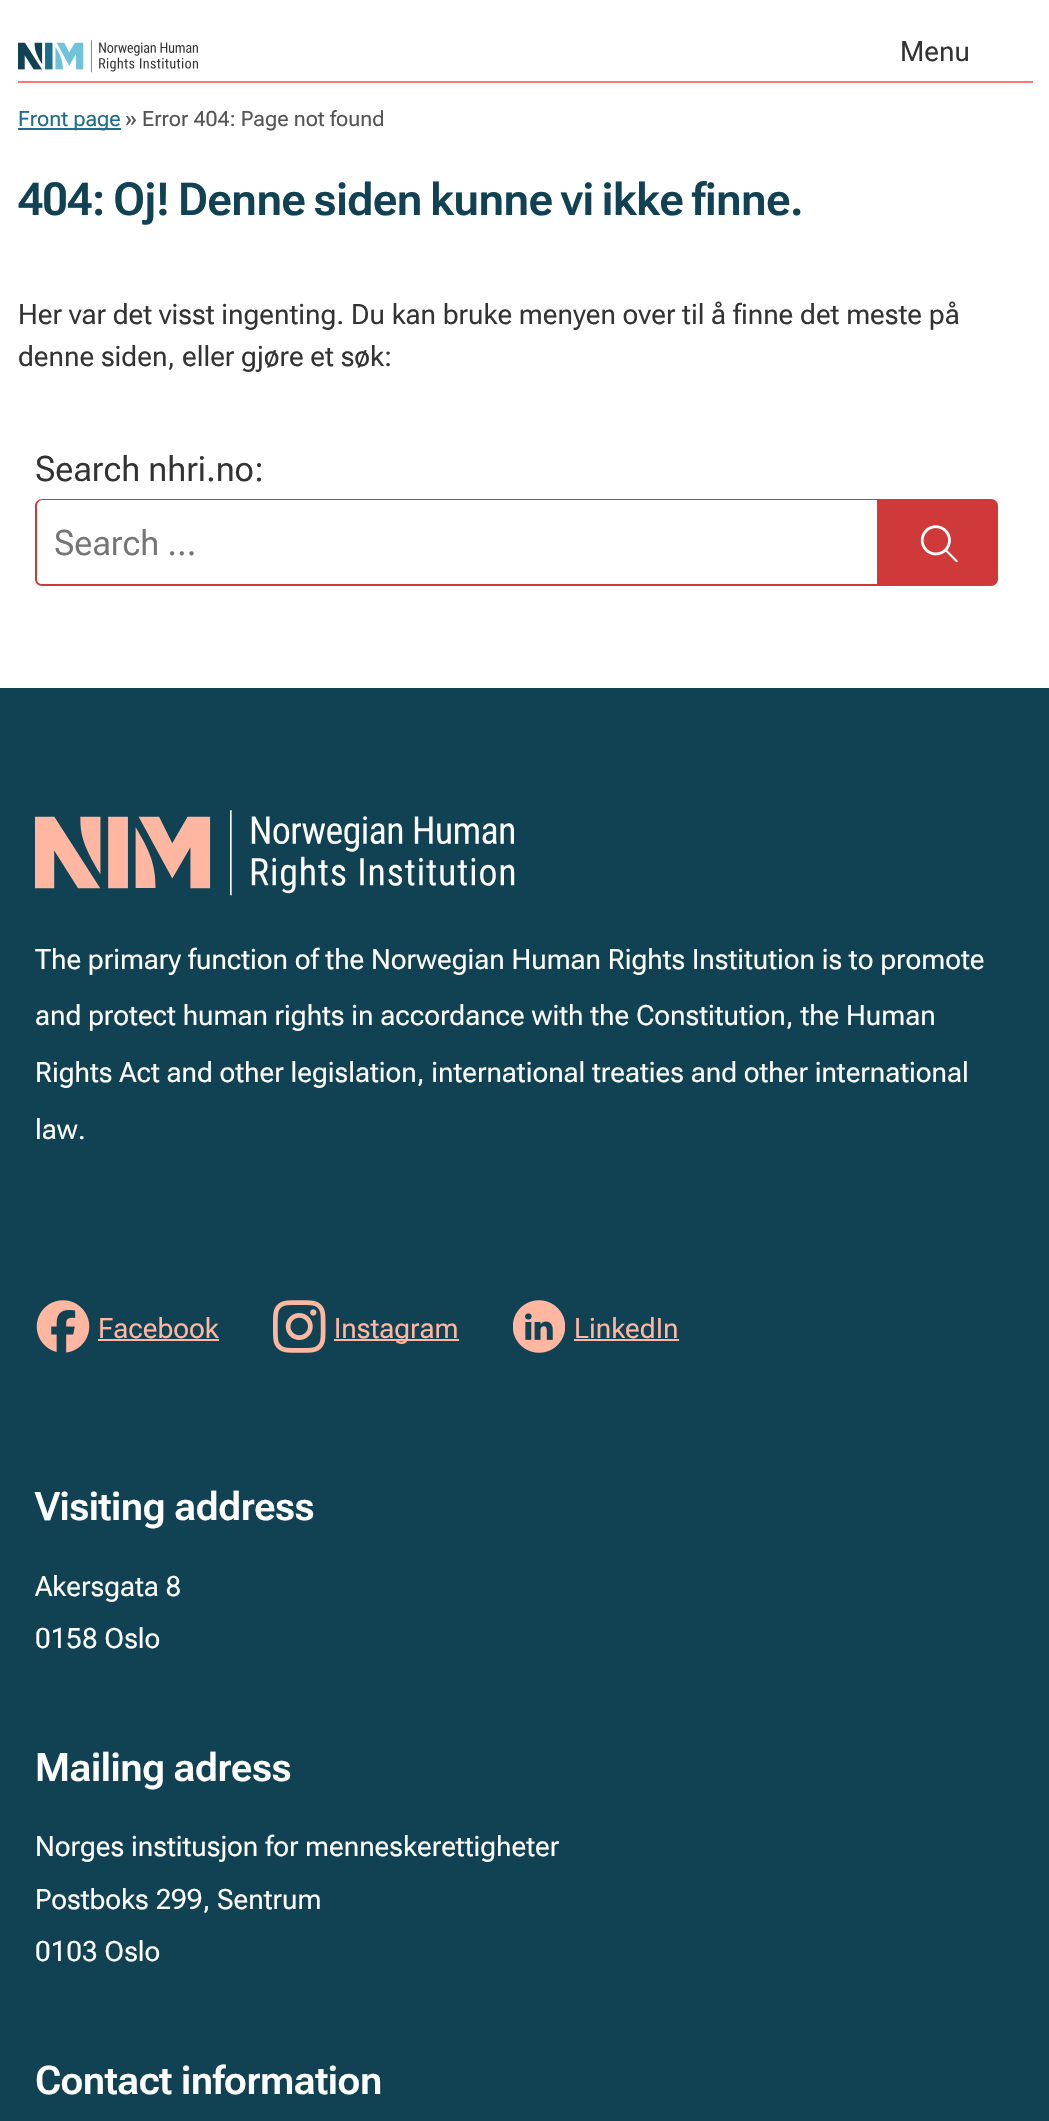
void draw(SkCanvas* canvas) {
    SkPaint paint;
    paint.setAntiAlias(true);
    auto face = [&](const char* family, int weight, float size, bool italic = false) {
        SkFontStyle style(weight, SkFontStyle::kNormal_Width,
            italic ? SkFontStyle::kItalic_Slant : SkFontStyle::kUpright_Slant);
        SkFont result(fontMgr->matchFamilyStyle(family, style), size);
        result.setSubpixel(true);
        return result;
    };
    auto write = [&](const char* s, float x, float y, const SkFont& font, SkColor color) {
        SkPaint ink(SkColor4f::FromColor(color));
        ink.setAntiAlias(true);
        canvas->drawString(s, x, y, font, ink);
    };
    auto writeSpaced = [&](const char* s, float x, float y, const SkFont& font, const SkPaint& ink, float letter, float word) {
        std::vector<SkGlyphID> glyphs(font.countText(s, strlen(s), SkTextEncoding::kUTF8));
        std::vector<float> xs(glyphs.size());
        font.textToGlyphs(s, strlen(s), SkTextEncoding::kUTF8, glyphs);
        font.getXPos(glyphs, xs, x);
        float extra = 0;
        for (size_t i = 0; i < glyphs.size(); i++) {
            xs[i] += extra;
            extra += letter + word * (glyphs[i] == font.unicharToGlyph(' '));
        }
        canvas->drawTextBlob(SkTextBlob::MakeFromPosHGlyphs(glyphs, xs, y, font), 0, 0, ink);
    };
    auto block = [&](float x, float y, float w, float h, SkColor color) {
        SkPaint ink(SkColor4f::FromColor(color));
        ink.setAntiAlias(true);
        canvas->drawRect(SkRect::MakeXYWH(x, y, w, h), ink);
    };
    auto paste = [&](const char* path, float x, float y, float w, float h) {
        auto image = SkImages::DeferredFromEncodedData(SkData::MakeFromFileName(path));
        canvas->drawImageRect(image, SkRect::MakeXYWH(x, y, w, h), SkSamplingOptions());
    };
    canvas->clear(SK_ColorWHITE);
    block(18, 81, 1015, 2, SkColorSetRGB(255, 118, 118));
    paste("pic1.png", 18, 40, 180, 33);
    auto kFont1 = face("Roboto Flex", 400, 28);
    write("Menu", 900, 61, kFont1, SkColorSetRGB(51, 51, 51));
    block(18, 128, 103, 2, SkColorSetRGB(29, 110, 138));
    auto kFont2 = face("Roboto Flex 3", 400, 21);
    write("Front page", 18, 126, kFont2, SkColorSetRGB(29, 110, 138));
    write("» Error 404: Page not found", 125, 126, kFont2, SkColorSetRGB(85, 85, 85));
    auto kFont3 = face("Roboto Flex", 600, 45.5f);
    paint.setColor(SkColorSetRGB(17, 66, 83));
    writeSpaced("404: Oj! Denne siden kunne vi ikke finne.", 18, 215, kFont3, paint, -0.45f, -2);
    write("Her var det visst ingenting. Du kan bruke menyen over til å finne det meste på", 18, 324, kFont1, SkColorSetRGB(51, 51, 51));
    write("denne siden, eller gjøre et søk:", 18, 366, kFont1, SkColorSetRGB(51, 51, 51));
    auto kFont4 = face("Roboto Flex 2", 400, 35);
    write("Search nhri.no:", 35, 481, kFont4, SkColorSetRGB(51, 51, 51));
    paint.setColor(SkColorSetRGB(207, 57, 57));
    canvas->drawPath(SkPathBuilder(SkPathFillType::kEvenOdd).moveTo(42, 499).lineTo(877, 499).lineTo(877, 586).lineTo(42, 586).cubicTo(38, 586, 35, 583, 35, 579).lineTo(35, 506).cubicTo(35, 502, 38, 499, 42, 499).close().moveTo(42, 500).lineTo(877, 500).lineTo(877, 584).lineTo(42, 584).cubicTo(39, 584, 37, 582, 37, 579).lineTo(37, 506).cubicTo(37, 503, 39, 500, 42, 500).close().detach(), paint);
    write("Search …", 54, 555, kFont4, SkColorSetRGB(117, 117, 117));
    canvas->drawPath(SkPathBuilder().moveTo(877, 499).lineTo(991, 499).cubicTo(995, 499, 998, 502, 998, 506).lineTo(998, 579).cubicTo(998, 583, 995, 586, 991, 586).lineTo(877, 586).close().detach(), paint);
    paste("pic2.png", 920, 525, 38, 38);
    block(0, 688, 1049, 1433, SkColorSetRGB(17, 66, 83));
    paste("pic3.png", 35, 810, 480, 86);
    write("The primary function of the Norwegian Human Rights Institution is to promote", 35, 969, kFont1, SK_ColorWHITE);
    write("and protect human rights in accordance with the Constitution, the Human", 35, 1025, kFont1, SK_ColorWHITE);
    write("Rights Act and other legislation, international treaties and other international", 35, 1082, kFont1, SK_ColorWHITE);
    write("law.", 35, 1139, kFont1, SK_ColorWHITE);
    paste("pic4.png", 36, 1300, 54, 53);
    write("Facebook", 98, 1338, kFont1, SkColorSetRGB(255, 183, 161));
    block(98, 1339, 121, 2, SkColorSetRGB(255, 183, 161));
    paste("pic5.png", 273, 1300, 53, 53);
    block(334, 1339, 125, 2, SkColorSetRGB(255, 183, 161));
    write("Instagram", 334, 1338, kFont1, SkColorSetRGB(255, 183, 161));
    paste("pic6.png", 513, 1300, 52, 53);
    write("LinkedIn", 574, 1338, kFont1, SkColorSetRGB(255, 183, 161));
    block(574, 1339, 105, 2, SkColorSetRGB(255, 183, 161));
    auto kFont5 = face("Roboto Flex 2", 600, 39.4f);
    paint.setColor(SK_ColorWHITE);
    writeSpaced("Visiting address", 35, 1520, kFont5, paint, -0.4f, 0);
    write("Akersgata 8", 35, 1596, kFont1, SK_ColorWHITE);
    write("0158 Oslo", 35, 1648, kFont1, SK_ColorWHITE);
    writeSpaced("Mailing adress", 35, 1781, kFont5, paint, -0.4f, 0);
    write("Norges institusjon for menneskerettigheter", 35, 1856, kFont1, SK_ColorWHITE);
    write("Postboks 299, Sentrum", 35, 1909, kFont1, SK_ColorWHITE);
    write("0103 Oslo", 35, 1961, kFont1, SK_ColorWHITE);
    writeSpaced("Contact information", 35, 2094, kFont5, paint, -0.4f, 0);
}
